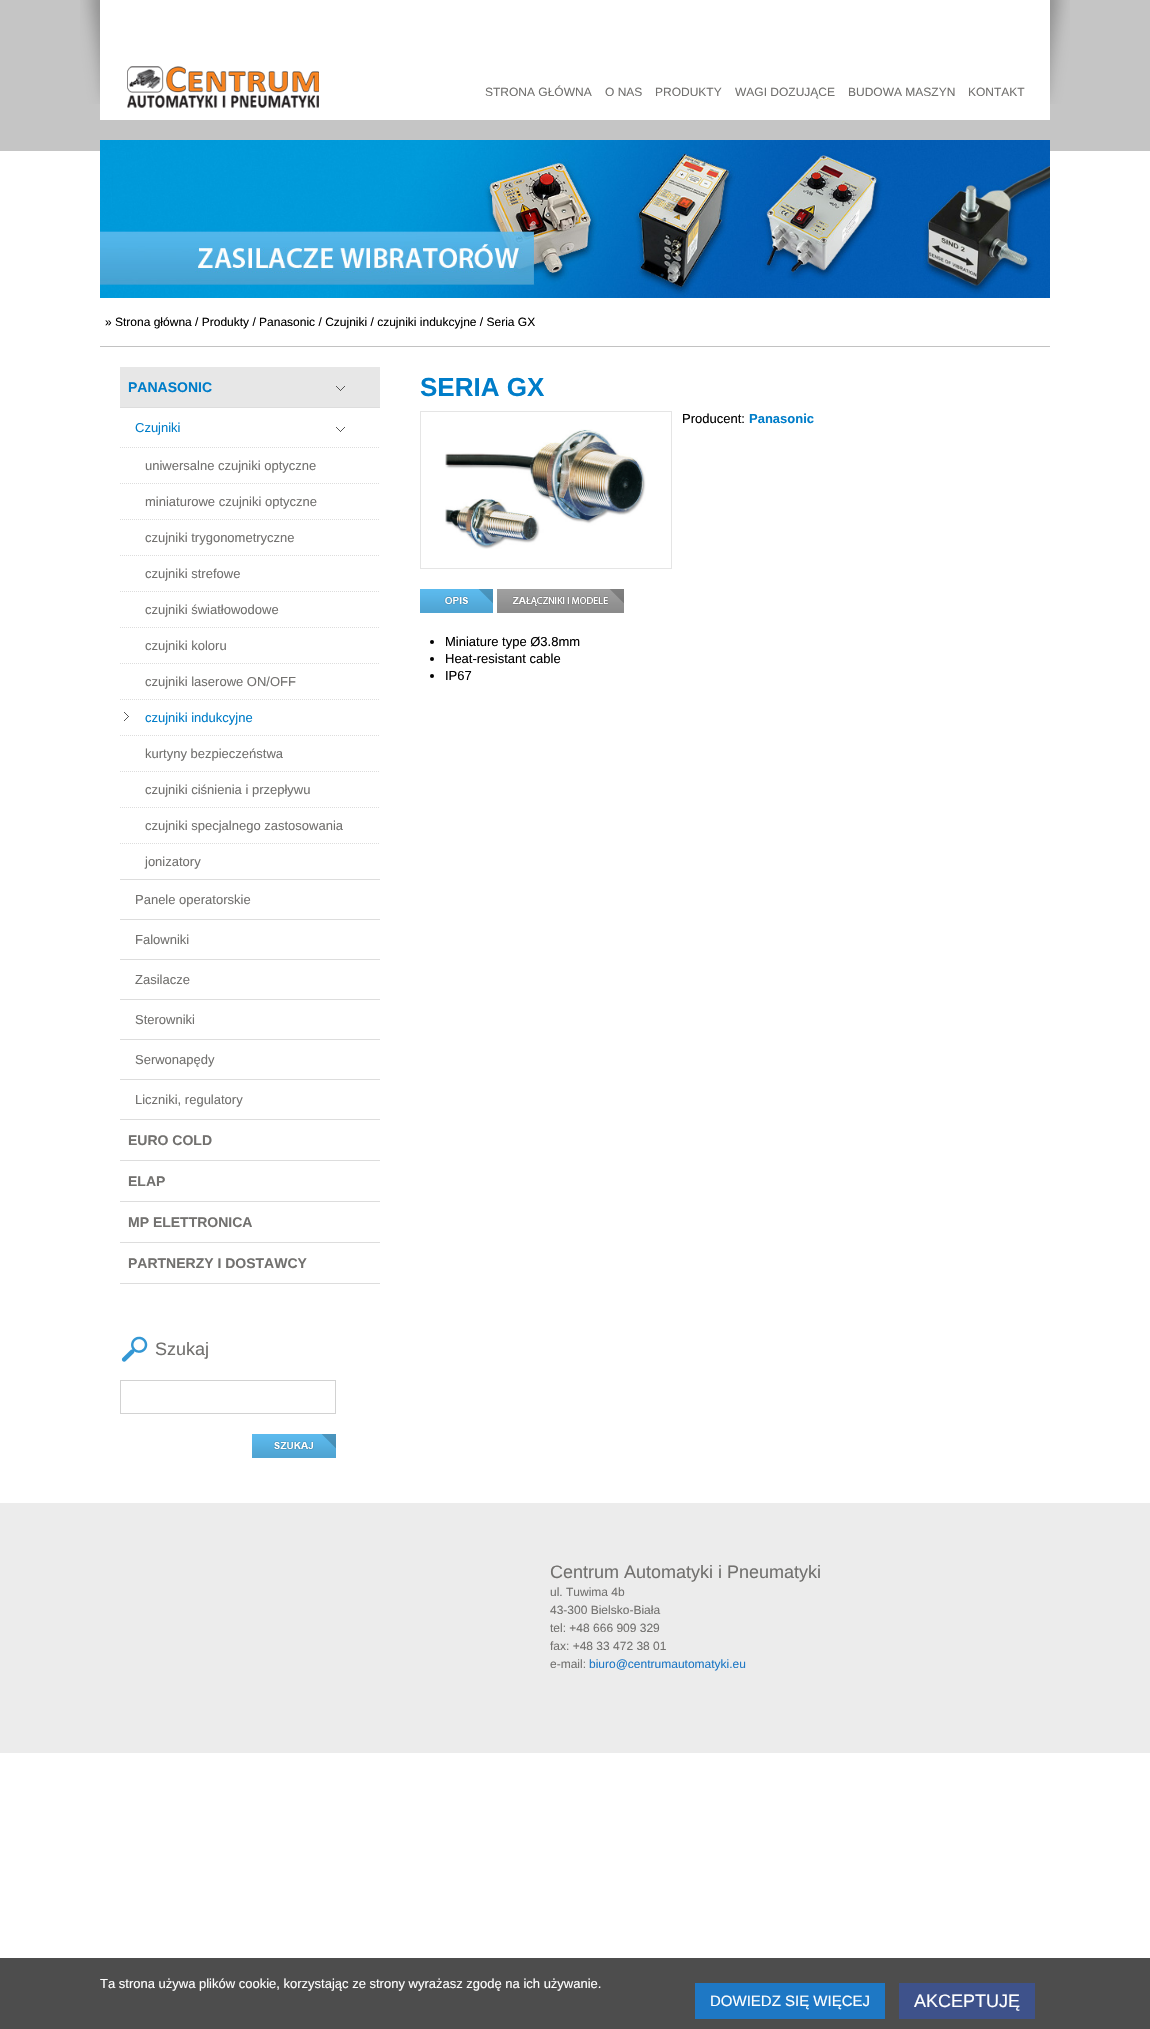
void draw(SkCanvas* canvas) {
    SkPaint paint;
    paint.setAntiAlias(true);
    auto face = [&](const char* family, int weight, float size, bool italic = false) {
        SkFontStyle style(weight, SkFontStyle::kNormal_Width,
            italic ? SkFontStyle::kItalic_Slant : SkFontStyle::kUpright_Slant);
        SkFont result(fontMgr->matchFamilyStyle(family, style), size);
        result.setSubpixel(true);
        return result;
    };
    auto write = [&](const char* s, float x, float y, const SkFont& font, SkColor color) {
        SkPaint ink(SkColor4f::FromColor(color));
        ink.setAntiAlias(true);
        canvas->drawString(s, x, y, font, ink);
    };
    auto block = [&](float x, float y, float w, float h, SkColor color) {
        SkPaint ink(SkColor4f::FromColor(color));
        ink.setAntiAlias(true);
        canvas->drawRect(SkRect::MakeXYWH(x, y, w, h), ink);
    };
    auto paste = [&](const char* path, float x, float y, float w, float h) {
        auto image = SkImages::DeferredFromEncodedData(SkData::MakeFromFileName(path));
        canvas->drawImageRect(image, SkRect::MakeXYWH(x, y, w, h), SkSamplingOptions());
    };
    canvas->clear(SK_ColorWHITE);
    block(0, 0, 1150, 151, SkColorSetRGB(197, 197, 197));
    block(100, 0, 950, 120, SK_ColorWHITE);
    paste("pic1.png", 80, 0, 20, 104);
    paste("pic2.png", 127, 66, 192, 42);
    auto kFont1 = face("Liberation Sans", 400, 12);
    write("STRONA GŁÓWNA", 485, 96, kFont1, SkColorSetRGB(114, 113, 111));
    write("O NAS", 605, 96, kFont1, SkColorSetRGB(114, 113, 111));
    write("PRODUKTY", 655, 96, kFont1, SkColorSetRGB(114, 113, 111));
    write("WAGI DOZUJĄCE", 735, 96, kFont1, SkColorSetRGB(114, 113, 111));
    write("BUDOWA MASZYN", 848, 96, kFont1, SkColorSetRGB(114, 113, 111));
    write("KONTAKT", 968, 96, kFont1, SkColorSetRGB(114, 113, 111));
    paste("pic3.png", 1050, 0, 20, 104);
    paste("pic4.png", 100, 140, 950, 158);
    paste("pic5.png", 113, 140, 25, 158);
    paste("pic6.png", 138, 140, 146, 158);
    paste("pic7.png", 284, 140, 754, 6);
    paste("pic8.png", 195, 146, 855, 152);
    block(100, 346, 950, 1, SkColorSetRGB(194, 194, 194));
    write("» Strona główna / Produkty / Panasonic / Czujniki / czujniki indukcyjne / Seria GX", 105, 326, kFont1, SK_ColorBLACK);
    block(120, 407, 260, 1, SkColorSetRGB(221, 221, 221));
    block(120, 367, 260, 40, SkColorSetRGB(231, 231, 231));
    paste("pic9.png", 336, 386, 9, 5);
    auto kFont2 = face("Liberation Sans", 700, 14);
    write("PANASONIC", 128, 392, kFont2, SkColorSetRGB(0, 125, 201));
    block(120, 1119, 260, 1, SkColorSetRGB(221, 221, 221));
    paste("pic10.png", 336, 427, 9, 5);
    auto kFont3 = face("Liberation Sans", 400, 13);
    write("Czujniki", 135, 432, kFont3, SkColorSetRGB(0, 125, 201));
    paint.setStyle(SkPaint::kStroke_Style);
    paint.setStrokeWidth(1);
    paint.setColor(SkColorSetRGB(221, 221, 221));
    paint.setPathEffect(SkDashPathEffect::Make({{1, 1}}, 0));
    canvas->drawPath(SkPathBuilder().moveTo(120, 447.5f).lineTo(380, 447.5f).detach(), paint);
    paint.setPathEffect(nullptr);
    write("uniwersalne czujniki optyczne", 145, 470, kFont3, SkColorSetRGB(114, 113, 111));
    paint.setPathEffect(SkDashPathEffect::Make({{1, 1}}, 0));
    canvas->drawPath(SkPathBuilder().moveTo(120, 483.5f).lineTo(380, 483.5f).detach(), paint);
    paint.setPathEffect(nullptr);
    write("miniaturowe czujniki optyczne", 145, 506, kFont3, SkColorSetRGB(114, 113, 111));
    paint.setPathEffect(SkDashPathEffect::Make({{1, 1}}, 0));
    canvas->drawPath(SkPathBuilder().moveTo(120, 519.5f).lineTo(380, 519.5f).detach(), paint);
    paint.setPathEffect(nullptr);
    write("czujniki trygonometryczne", 145, 542, kFont3, SkColorSetRGB(114, 113, 111));
    paint.setPathEffect(SkDashPathEffect::Make({{1, 1}}, 0));
    canvas->drawPath(SkPathBuilder().moveTo(120, 555.5f).lineTo(380, 555.5f).detach(), paint);
    paint.setPathEffect(nullptr);
    write("czujniki strefowe", 145, 578, kFont3, SkColorSetRGB(114, 113, 111));
    paint.setPathEffect(SkDashPathEffect::Make({{1, 1}}, 0));
    canvas->drawPath(SkPathBuilder().moveTo(120, 591.5f).lineTo(380, 591.5f).detach(), paint);
    paint.setPathEffect(nullptr);
    write("czujniki światłowodowe", 145, 614, kFont3, SkColorSetRGB(114, 113, 111));
    paint.setPathEffect(SkDashPathEffect::Make({{1, 1}}, 0));
    canvas->drawPath(SkPathBuilder().moveTo(120, 627.5f).lineTo(380, 627.5f).detach(), paint);
    paint.setPathEffect(nullptr);
    write("czujniki koloru", 145, 650, kFont3, SkColorSetRGB(114, 113, 111));
    paint.setPathEffect(SkDashPathEffect::Make({{1, 1}}, 0));
    canvas->drawPath(SkPathBuilder().moveTo(120, 663.5f).lineTo(380, 663.5f).detach(), paint);
    paint.setPathEffect(nullptr);
    write("czujniki laserowe ON/OFF", 145, 686, kFont3, SkColorSetRGB(114, 113, 111));
    paint.setPathEffect(SkDashPathEffect::Make({{1, 1}}, 0));
    canvas->drawPath(SkPathBuilder().moveTo(120, 699.5f).lineTo(380, 699.5f).detach(), paint);
    paint.setPathEffect(nullptr);
    paste("pic11.png", 124, 712, 5, 9);
    write("czujniki indukcyjne", 145, 722, kFont3, SkColorSetRGB(0, 125, 201));
    paint.setPathEffect(SkDashPathEffect::Make({{1, 1}}, 0));
    canvas->drawPath(SkPathBuilder().moveTo(120, 735.5f).lineTo(380, 735.5f).detach(), paint);
    paint.setPathEffect(nullptr);
    write("kurtyny bezpieczeństwa", 145, 758, kFont3, SkColorSetRGB(114, 113, 111));
    paint.setPathEffect(SkDashPathEffect::Make({{1, 1}}, 0));
    canvas->drawPath(SkPathBuilder().moveTo(120, 771.5f).lineTo(380, 771.5f).detach(), paint);
    paint.setPathEffect(nullptr);
    write("czujniki ciśnienia i przepływu", 145, 794, kFont3, SkColorSetRGB(114, 113, 111));
    paint.setPathEffect(SkDashPathEffect::Make({{1, 1}}, 0));
    canvas->drawPath(SkPathBuilder().moveTo(120, 807.5f).lineTo(380, 807.5f).detach(), paint);
    paint.setPathEffect(nullptr);
    write("czujniki specjalnego zastosowania", 145, 830, kFont3, SkColorSetRGB(114, 113, 111));
    paint.setPathEffect(SkDashPathEffect::Make({{1, 1}}, 0));
    canvas->drawPath(SkPathBuilder().moveTo(120, 843.5f).lineTo(380, 843.5f).detach(), paint);
    paint.setPathEffect(nullptr);
    write("jonizatory", 145, 866, kFont3, SkColorSetRGB(114, 113, 111));
    block(120, 879, 260, 1, SkColorSetRGB(221, 221, 221));
    write("Panele operatorskie", 135, 904, kFont3, SkColorSetRGB(114, 113, 111));
    block(120, 919, 260, 1, SkColorSetRGB(221, 221, 221));
    write("Falowniki", 135, 944, kFont3, SkColorSetRGB(114, 113, 111));
    block(120, 959, 260, 1, SkColorSetRGB(221, 221, 221));
    write("Zasilacze", 135, 984, kFont3, SkColorSetRGB(114, 113, 111));
    block(120, 999, 260, 1, SkColorSetRGB(221, 221, 221));
    write("Sterowniki", 135, 1024, kFont3, SkColorSetRGB(114, 113, 111));
    block(120, 1039, 260, 1, SkColorSetRGB(221, 221, 221));
    write("Serwonapędy", 135, 1064, kFont3, SkColorSetRGB(114, 113, 111));
    block(120, 1079, 260, 1, SkColorSetRGB(221, 221, 221));
    write("Liczniki, regulatory", 135, 1104, kFont3, SkColorSetRGB(114, 113, 111));
    block(120, 1160, 260, 1, SkColorSetRGB(221, 221, 221));
    write("EURO COLD", 128, 1145, kFont2, SkColorSetRGB(114, 113, 111));
    block(120, 1201, 260, 1, SkColorSetRGB(221, 221, 221));
    write("ELAP", 128, 1186, kFont2, SkColorSetRGB(114, 113, 111));
    block(120, 1242, 260, 1, SkColorSetRGB(221, 221, 221));
    write("MP ELETTRONICA", 128, 1227, kFont2, SkColorSetRGB(114, 113, 111));
    block(120, 1283, 260, 1, SkColorSetRGB(221, 221, 221));
    write("PARTNERZY I DOSTAWCY", 128, 1268, kFont2, SkColorSetRGB(114, 113, 111));
    paste("pic12.png", 121, 1336, 27, 26);
    auto kFont4 = face("Liberation Sans", 400, 18);
    write("Szukaj", 155, 1355, kFont4, SkColorSetRGB(114, 113, 111));
    paint.setColor(SkColorSetRGB(210, 210, 210));
    canvas->drawRect(SkRect::MakeXYWH(120.5f, 1380.5f, 215, 33), paint);
    paste("pic13.png", 252, 1434, 84, 24);
    auto kFont5 = face("Liberation Sans", 700, 26);
    write("SERIA GX", 420, 396, kFont5, SkColorSetRGB(0, 125, 201));
    paint.setColor(SkColorSetRGB(229, 229, 229));
    canvas->drawRect(SkRect::MakeXYWH(420.5f, 411.5f, 251, 157), paint);
    paste("pic14.png", 445, 429, 201, 120);
    write("Producent:", 682, 423, kFont3, SK_ColorBLACK);
    auto kFont6 = face("Liberation Sans", 700, 13);
    write("Panasonic", 749, 423, kFont6, SkColorSetRGB(0, 125, 201));
    paste("pic15.png", 420, 589, 73, 24);
    paste("pic16.png", 497, 589, 127, 24);
    paint.setStyle(SkPaint::kFill_Style);
    paint.setColor(SK_ColorBLACK);
    canvas->drawCircle(432, 642, 2, paint);
    write("Miniature type Ø3.8mm", 445, 646, kFont3, SK_ColorBLACK);
    canvas->drawCircle(432, 659, 2, paint);
    write("Heat-resistant cable", 445, 663, kFont3, SK_ColorBLACK);
    canvas->drawCircle(432, 676, 2, paint);
    write("IP67", 445, 680, kFont3, SK_ColorBLACK);
    block(0, 1503, 1150, 250, SkColorSetRGB(236, 236, 236));
    write("Centrum Automatyki i Pneumatyki", 550, 1578, kFont4, SkColorSetRGB(114, 113, 111));
    write("ul. Tuwima 4b", 550, 1596, kFont1, SkColorSetRGB(114, 113, 111));
    write("43-300 Bielsko-Biała", 550, 1614, kFont1, SkColorSetRGB(114, 113, 111));
    write("tel: +48 666 909 329", 550, 1632, kFont1, SkColorSetRGB(114, 113, 111));
    write("fax: +48 33 472 38 01", 550, 1650, kFont1, SkColorSetRGB(114, 113, 111));
    write("e-mail:", 550, 1668, kFont1, SkColorSetRGB(114, 113, 111));
    write("biuro@centrumautomatyki.eu", 589, 1668, kFont1, SkColorSetRGB(30, 120, 197));
    block(0, 1958, 1150, 71, SkColorSetRGB(77, 77, 77));
    write("Ta strona używa plików cookie, korzystając ze strony wyrażasz zgodę na ich używanie.", 100, 1988, kFont3, SK_ColorWHITE);
    block(695, 1983, 190, 36, SkColorSetRGB(30, 120, 197));
    auto kFont7 = face("Liberation Sans", 400, 15);
    write("DOWIEDZ SIĘ WIĘCEJ", 710, 2006, kFont7, SK_ColorWHITE);
    block(899, 1983, 136, 36, SkColorSetRGB(62, 82, 139));
    write("AKCEPTUJĘ", 914, 2007, kFont4, SK_ColorWHITE);
}
